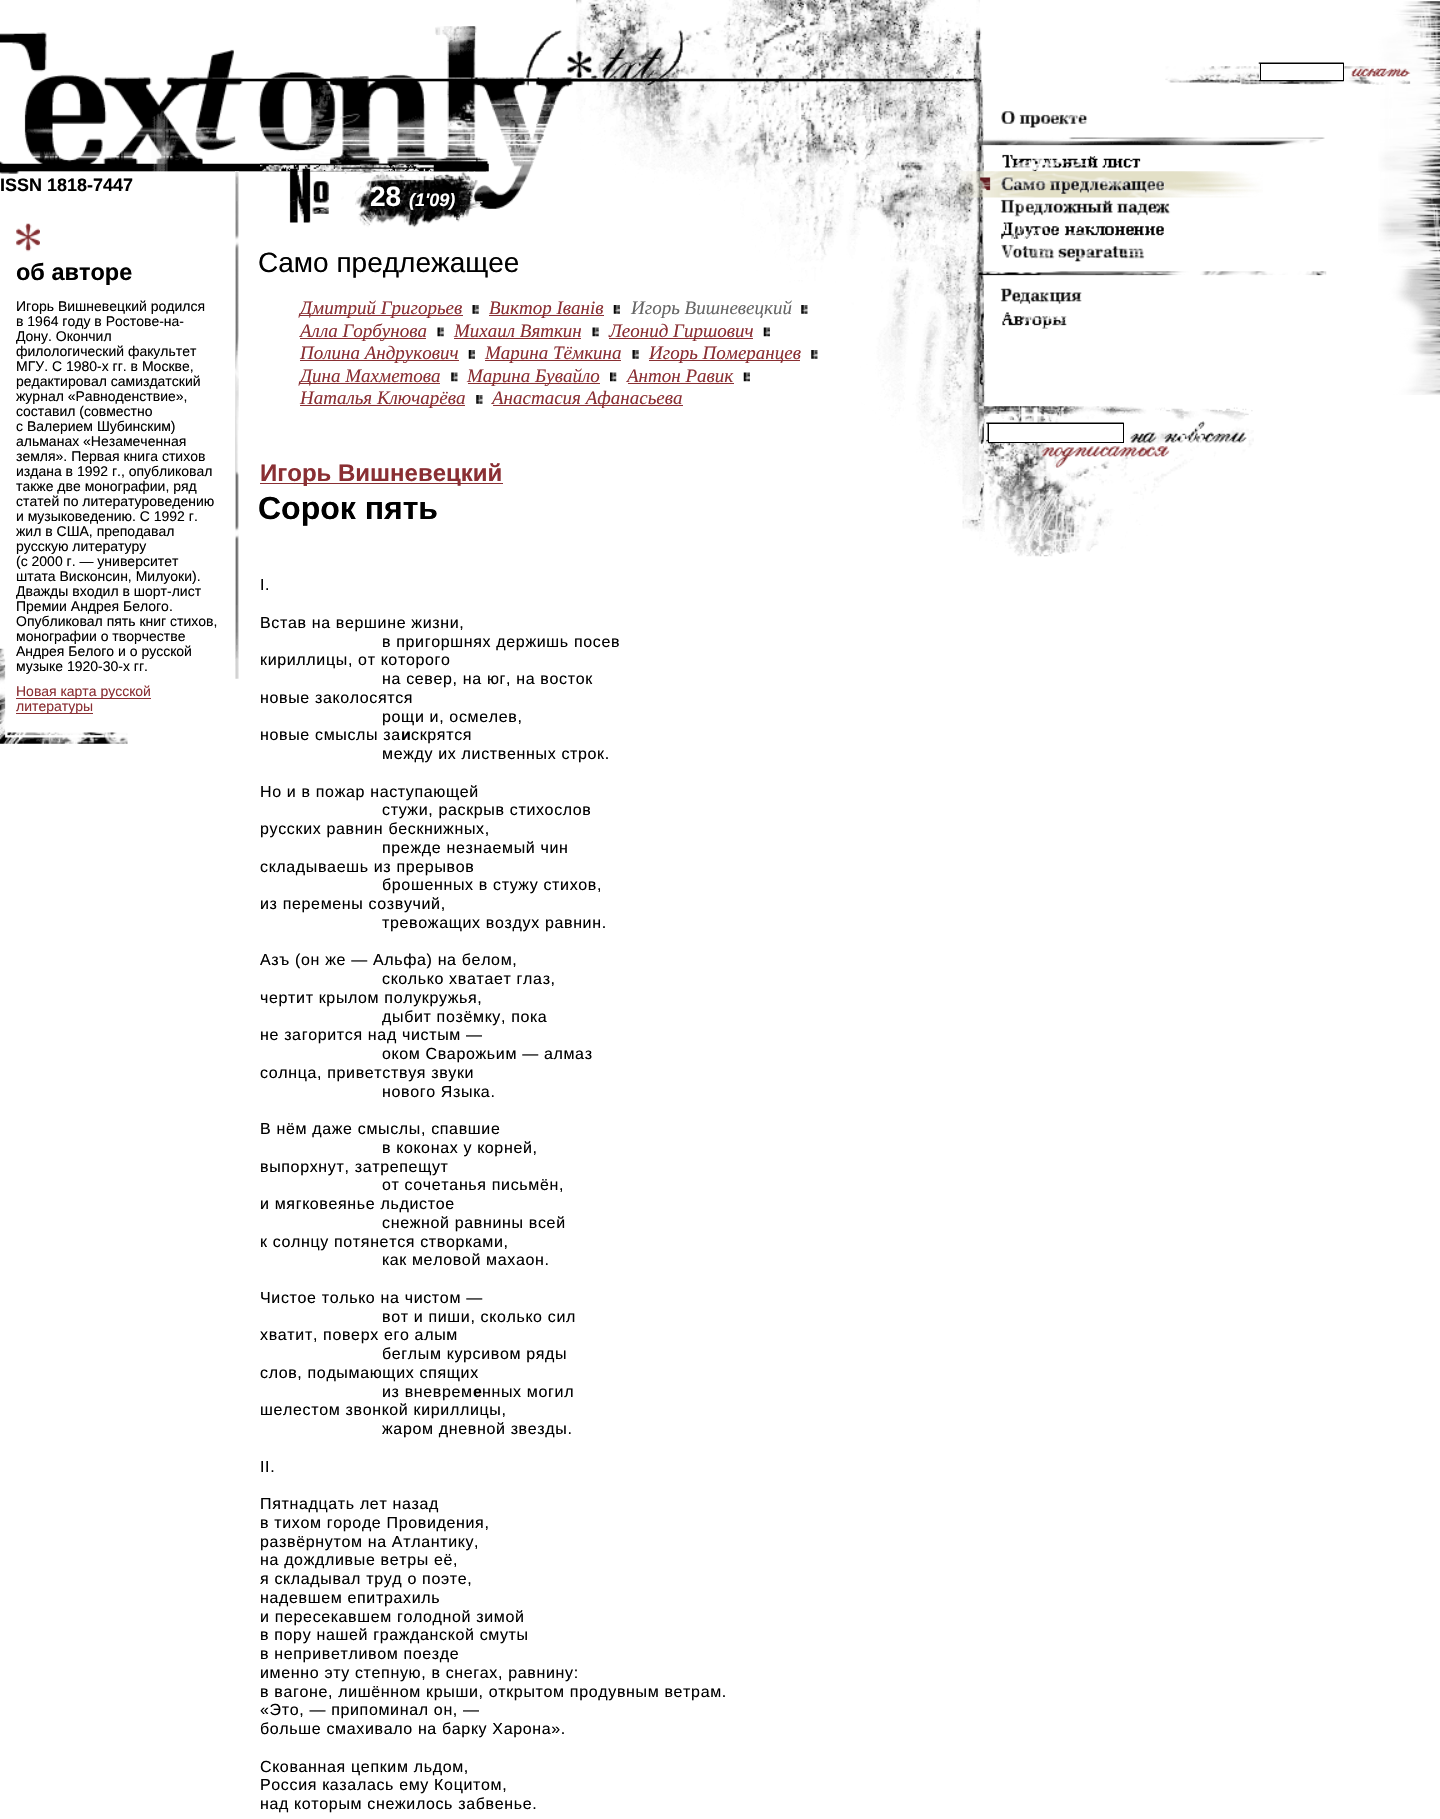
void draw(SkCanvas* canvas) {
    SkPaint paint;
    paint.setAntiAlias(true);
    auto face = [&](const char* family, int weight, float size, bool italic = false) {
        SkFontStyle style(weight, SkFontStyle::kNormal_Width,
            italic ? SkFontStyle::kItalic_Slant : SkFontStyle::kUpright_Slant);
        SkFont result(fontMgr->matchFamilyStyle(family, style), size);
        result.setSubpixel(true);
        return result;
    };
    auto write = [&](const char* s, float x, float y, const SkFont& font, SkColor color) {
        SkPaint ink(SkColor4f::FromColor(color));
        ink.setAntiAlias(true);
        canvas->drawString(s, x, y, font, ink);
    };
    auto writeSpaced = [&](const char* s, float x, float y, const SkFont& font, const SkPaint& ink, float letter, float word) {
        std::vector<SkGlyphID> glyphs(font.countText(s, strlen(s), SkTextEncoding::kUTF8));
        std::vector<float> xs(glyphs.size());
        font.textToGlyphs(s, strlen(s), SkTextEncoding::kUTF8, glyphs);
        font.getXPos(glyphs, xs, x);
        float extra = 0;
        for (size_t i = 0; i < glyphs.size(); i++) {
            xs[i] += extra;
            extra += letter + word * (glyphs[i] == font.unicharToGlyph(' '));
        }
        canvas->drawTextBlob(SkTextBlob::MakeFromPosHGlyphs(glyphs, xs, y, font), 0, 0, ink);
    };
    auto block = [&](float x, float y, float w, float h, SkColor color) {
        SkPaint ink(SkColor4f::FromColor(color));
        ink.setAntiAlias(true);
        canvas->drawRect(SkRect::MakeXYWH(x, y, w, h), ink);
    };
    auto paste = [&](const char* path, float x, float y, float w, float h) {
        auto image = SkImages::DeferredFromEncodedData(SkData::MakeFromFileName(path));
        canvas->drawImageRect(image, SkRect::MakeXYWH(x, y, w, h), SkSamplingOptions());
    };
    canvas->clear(SK_ColorWHITE);
    paste("pic1.png", 524, 0, 462, 532);
    paste("pic2.png", 0, 26, 683, 183);
    auto kFont1 = face("Liberation Sans", 700, 18);
    write("ISSN 1818-7447", 0, 191, kFont1, SK_ColorBLACK);
    paste("pic3.png", 0, 648, 128, 96);
    paste("pic4.png", 16, 223, 24, 29);
    auto kFont2 = face("Liberation Sans", 700, 23.5f);
    write("об авторе", 16, 280, kFont2, SK_ColorBLACK);
    auto kFont3 = face("Liberation Sans", 400, 14);
    write("Игорь Вишневецкий родился", 16, 311, kFont3, SK_ColorBLACK);
    write("в 1964 году в Ростове-на-", 16, 326, kFont3, SK_ColorBLACK);
    write("Дону. Окончил", 16, 341, kFont3, SK_ColorBLACK);
    write("филологический факультет", 16, 356, kFont3, SK_ColorBLACK);
    write("МГУ. С 1980-х гг. в Москве,", 16, 371, kFont3, SK_ColorBLACK);
    write("редактировал самиздатский", 16, 386, kFont3, SK_ColorBLACK);
    write("журнал «Равноденствие»,", 16, 401, kFont3, SK_ColorBLACK);
    write("составил (совместно", 16, 416, kFont3, SK_ColorBLACK);
    write("с Валерием Шубинским)", 16, 431, kFont3, SK_ColorBLACK);
    write("альманах «Незамеченная", 16, 446, kFont3, SK_ColorBLACK);
    write("земля». Первая книга стихов", 16, 461, kFont3, SK_ColorBLACK);
    write("издана в 1992 г., опубликовал", 16, 476, kFont3, SK_ColorBLACK);
    write("также две монографии, ряд", 16, 491, kFont3, SK_ColorBLACK);
    write("статей по литературоведению", 16, 506, kFont3, SK_ColorBLACK);
    write("и музыковедению. С 1992 г.", 16, 521, kFont3, SK_ColorBLACK);
    write("жил в США, преподавал", 16, 536, kFont3, SK_ColorBLACK);
    write("русскую литературу", 16, 551, kFont3, SK_ColorBLACK);
    write("(с 2000 г. — университет", 16, 566, kFont3, SK_ColorBLACK);
    write("штата Висконсин, Милуоки).", 16, 581, kFont3, SK_ColorBLACK);
    write("Дважды входил в шорт-лист", 16, 596, kFont3, SK_ColorBLACK);
    write("Премии Андрея Белого.", 16, 611, kFont3, SK_ColorBLACK);
    write("Опубликовал пять книг стихов,", 16, 626, kFont3, SK_ColorBLACK);
    write("монографии о творчестве", 16, 641, kFont3, SK_ColorBLACK);
    write("Андрея Белого и о русской", 16, 656, kFont3, SK_ColorBLACK);
    write("музыке 1920-30-х гг.", 16, 671, kFont3, SK_ColorBLACK);
    block(16, 698, 135, 1, SkColorSetRGB(138, 47, 51));
    write("Новая карта русской", 16, 696, kFont3, SkColorSetRGB(138, 47, 51));
    block(16, 713, 77, 1, SkColorSetRGB(138, 47, 51));
    write("литературы", 16, 711, kFont3, SkColorSetRGB(138, 47, 51));
    paste("pic5.png", 235, 171, 4, 508);
    paste("pic6.png", 260, 163, 229, 65);
    paste("pic7.png", 289, 168, 40, 55);
    auto kFont4 = face("Liberation Sans", 700, 28);
    write("28", 370, 206, kFont4, SK_ColorWHITE);
    auto kFont5 = face("Liberation Sans", 700, 18, true);
    write("(1'09)", 409, 206, kFont5, SK_ColorWHITE);
    auto kFont6 = face("Liberation Sans", 400, 28);
    write("Само предлежащее", 258, 272, kFont6, SK_ColorBLACK);
    block(300, 315, 163, 1, SkColorSetRGB(138, 47, 51));
    auto kFont7 = face("Liberation Serif", 400, 19, true);
    write("Дмитрий Григорьев", 300, 314, kFont7, SkColorSetRGB(138, 47, 51));
    paste("pic8.png", 472, 305, 7, 9);
    block(489, 315, 115, 1, SkColorSetRGB(138, 47, 51));
    write("Виктор Iванiв", 489, 314, kFont7, SkColorSetRGB(138, 47, 51));
    paste("pic9.png", 613, 305, 7, 9);
    write("Игорь Вишневецкий", 631, 314, kFont7, SkColorSetRGB(102, 102, 102));
    paste("pic10.png", 801, 305, 7, 9);
    block(300, 338, 126, 1, SkColorSetRGB(138, 47, 51));
    write("Алла Горбунова", 300, 337, kFont7, SkColorSetRGB(138, 47, 51));
    paste("pic11.png", 437, 327, 7, 10);
    write("Михаил Вяткин", 454, 337, kFont7, SkColorSetRGB(138, 47, 51));
    block(454, 338, 127, 1, SkColorSetRGB(138, 47, 51));
    paste("pic11.png", 592, 327, 7, 10);
    block(609, 338, 144, 1, SkColorSetRGB(138, 47, 51));
    write("Леонид Гиршович", 609, 337, kFont7, SkColorSetRGB(138, 47, 51));
    paste("pic12.png", 763, 327, 7, 10);
    block(300, 360, 159, 1, SkColorSetRGB(138, 47, 51));
    write("Полина Андрукович", 300, 359, kFont7, SkColorSetRGB(138, 47, 51));
    paste("pic9.png", 468, 350, 7, 9);
    block(485, 360, 136, 1, SkColorSetRGB(138, 47, 51));
    write("Марина Тёмкина", 485, 359, kFont7, SkColorSetRGB(138, 47, 51));
    paste("pic8.png", 632, 350, 7, 9);
    block(649, 360, 151, 1, SkColorSetRGB(138, 47, 51));
    write("Игорь Померанцев", 649, 359, kFont7, SkColorSetRGB(138, 47, 51));
    paste("pic10.png", 811, 350, 7, 9);
    block(300, 383, 140, 1, SkColorSetRGB(138, 47, 51));
    write("Дина Махметова", 300, 382, kFont7, SkColorSetRGB(138, 47, 51));
    paste("pic13.png", 451, 372, 7, 10);
    block(468, 383, 132, 1, SkColorSetRGB(138, 47, 51));
    write("Марина Бувайло", 467, 382, kFont7, SkColorSetRGB(138, 47, 51));
    paste("pic14.png", 610, 372, 7, 10);
    write("Антон Равик", 627, 382, kFont7, SkColorSetRGB(138, 47, 51));
    block(628, 383, 106, 1, SkColorSetRGB(138, 47, 51));
    paste("pic15.png", 743, 372, 7, 10);
    block(300, 405, 165, 1, SkColorSetRGB(138, 47, 51));
    write("Наталья Ключарёва", 300, 404, kFont7, SkColorSetRGB(138, 47, 51));
    paste("pic10.png", 476, 395, 7, 9);
    block(493, 405, 190, 1, SkColorSetRGB(138, 47, 51));
    write("Анастасия Афанасьева", 492, 404, kFont7, SkColorSetRGB(138, 47, 51));
    block(260, 483, 243, 1, SkColorSetRGB(138, 47, 51));
    auto kFont8 = face("Liberation Sans", 700, 24);
    write("Игорь Вишневецкий", 260, 481, kFont8, SkColorSetRGB(138, 47, 51));
    auto kFont9 = face("Liberation Sans", 700, 32);
    write("Сорок пять", 258, 519, kFont9, SK_ColorBLACK);
    auto kFont10 = face("Liberation Sans", 400, 16);
    paint.setColor(SK_ColorBLACK);
    writeSpaced("I.", 260, 590, kFont10, paint, 0.65f, 0);
    writeSpaced("Встав на вершине жизни,", 260, 628, kFont10, paint, 0.65f, 0);
    writeSpaced("в пригоршнях держишь посев", 382, 647, kFont10, paint, 0.65f, 0);
    writeSpaced("кириллицы, от которого", 260, 665, kFont10, paint, 0.65f, 0);
    writeSpaced("на север, на юг, на восток", 382, 684, kFont10, paint, 0.65f, 0);
    writeSpaced("новые заколосятся", 260, 703, kFont10, paint, 0.65f, 0);
    writeSpaced("рощи и, осмелев,", 382, 722, kFont10, paint, 0.65f, 0);
    writeSpaced("новые смыслы за", 260, 740, kFont10, paint, 0.65f, 0);
    auto kFont11 = face("Liberation Sans", 700, 16);
    writeSpaced("и", 401, 740, kFont11, paint, 0.65f, 0);
    writeSpaced("скрятся", 411, 740, kFont10, paint, 0.65f, 0);
    writeSpaced("между их лиственных строк.", 382, 759, kFont10, paint, 0.65f, 0);
    writeSpaced("Но и в пожар наступающей", 260, 797, kFont10, paint, 0.65f, 0);
    writeSpaced("стужи, раскрыв стихослов", 382, 815, kFont10, paint, 0.65f, 0);
    writeSpaced("русских равнин бескнижных,", 260, 834, kFont10, paint, 0.65f, 0);
    writeSpaced("прежде незнаемый чин", 382, 853, kFont10, paint, 0.65f, 0);
    writeSpaced("складываешь из прерывов", 260, 872, kFont10, paint, 0.65f, 0);
    writeSpaced("брошенных в стужу стихов,", 382, 890, kFont10, paint, 0.65f, 0);
    writeSpaced("из перемены созвучий,", 260, 909, kFont10, paint, 0.65f, 0);
    writeSpaced("тревожащих воздух равнин.", 382, 928, kFont10, paint, 0.65f, 0);
    writeSpaced("Азъ (он же — Альфа) на белом,", 260, 965, kFont10, paint, 0.65f, 0);
    writeSpaced("сколько хватает глаз,", 382, 984, kFont10, paint, 0.65f, 0);
    writeSpaced("чертит крылом полукружья,", 260, 1003, kFont10, paint, 0.65f, 0);
    writeSpaced("дыбит позёмку, пока", 382, 1022, kFont10, paint, 0.65f, 0);
    writeSpaced("не загорится над чистым —", 260, 1040, kFont10, paint, 0.65f, 0);
    writeSpaced("оком Сварожьим — алмаз", 382, 1059, kFont10, paint, 0.65f, 0);
    writeSpaced("солнца, приветствуя звуки", 260, 1078, kFont10, paint, 0.65f, 0);
    writeSpaced("нового Языка.", 382, 1097, kFont10, paint, 0.65f, 0);
    writeSpaced("В нём даже смыслы, спавшие", 260, 1134, kFont10, paint, 0.65f, 0);
    writeSpaced("в коконах у корней,", 382, 1153, kFont10, paint, 0.65f, 0);
    writeSpaced("выпорхнут, затрепещут", 260, 1172, kFont10, paint, 0.65f, 0);
    writeSpaced("от сочетанья письмён,", 382, 1190, kFont10, paint, 0.65f, 0);
    writeSpaced("и мягковеянье льдистое", 260, 1209, kFont10, paint, 0.65f, 0);
    writeSpaced("снежной равнины всей", 382, 1228, kFont10, paint, 0.65f, 0);
    writeSpaced("к солнцу потянется створками,", 260, 1247, kFont10, paint, 0.65f, 0);
    writeSpaced("как меловой махаон.", 382, 1265, kFont10, paint, 0.65f, 0);
    writeSpaced("Чистое только на чистом —", 260, 1303, kFont10, paint, 0.65f, 0);
    writeSpaced("вот и пиши, сколько сил", 382, 1322, kFont10, paint, 0.65f, 0);
    writeSpaced("хватит, поверх его алым", 260, 1340, kFont10, paint, 0.65f, 0);
    writeSpaced("беглым курсивом ряды", 382, 1359, kFont10, paint, 0.65f, 0);
    writeSpaced("слов, подымающих спящих", 260, 1378, kFont10, paint, 0.65f, 0);
    writeSpaced("из вневрем", 382, 1397, kFont10, paint, 0.65f, 0);
    writeSpaced("е", 473, 1397, kFont11, paint, 0.65f, 0);
    writeSpaced("нных могил", 482, 1397, kFont10, paint, 0.65f, 0);
    writeSpaced("шелестом звонкой кириллицы,", 260, 1415, kFont10, paint, 0.65f, 0);
    writeSpaced("жаром дневной звезды.", 382, 1434, kFont10, paint, 0.65f, 0);
    writeSpaced("II.", 260, 1472, kFont10, paint, 0.65f, 0);
    writeSpaced("Пятнадцать лет назад", 260, 1509, kFont10, paint, 0.65f, 0);
    writeSpaced("в тихом городе Провидения,", 260, 1528, kFont10, paint, 0.65f, 0);
    writeSpaced("развёрнутом на Атлантику,", 260, 1547, kFont10, paint, 0.65f, 0);
    writeSpaced("на дождливые ветры её,", 260, 1565, kFont10, paint, 0.65f, 0);
    writeSpaced("я складывал труд о поэте,", 260, 1584, kFont10, paint, 0.65f, 0);
    writeSpaced("надевшем епитрахиль", 260, 1603, kFont10, paint, 0.65f, 0);
    writeSpaced("и пересекавшем голодной зимой", 260, 1622, kFont10, paint, 0.65f, 0);
    writeSpaced("в пору нашей гражданской смуты", 260, 1640, kFont10, paint, 0.65f, 0);
    writeSpaced("в неприветливом поезде", 260, 1659, kFont10, paint, 0.65f, 0);
    writeSpaced("именно эту степную, в снегах, равнину:", 260, 1678, kFont10, paint, 0.65f, 0);
    writeSpaced("в вагоне, лишённом крыши, открытом продувным ветрам.", 260, 1697, kFont10, paint, 0.65f, 0);
    writeSpaced("«Это, — припоминал он, —", 260, 1715, kFont10, paint, 0.65f, 0);
    writeSpaced("больше смахивало на барку Харона».", 260, 1734, kFont10, paint, 0.65f, 0);
    writeSpaced("Скованная цепким льдом,", 260, 1772, kFont10, paint, 0.65f, 0);
    writeSpaced("Россия казалась ему Коцитом,", 260, 1790, kFont10, paint, 0.65f, 0);
    writeSpaced("над которым снежилось забвенье.", 260, 1809, kFont10, paint, 0.65f, 0);
    paste("pic16.png", 1378, 1, 62, 394);
    paste("pic17.png", 1165, 62, 246, 23);
    paint.setColor(SK_ColorWHITE);
    canvas->drawRect(SkRect::MakeXYWH(1260.5f, 63.5f, 83, 17), paint);
    paint.setStyle(SkPaint::kStroke_Style);
    paint.setStrokeWidth(1);
    paint.setColor(SK_ColorBLACK);
    canvas->drawRect(SkRect::MakeXYWH(1260.5f, 63.5f, 83, 17), paint);
    paste("pic18.png", 1351, 68, 60, 9);
    paste("pic19.png", 1001, 111, 87, 17);
    paste("pic20.png", 978, 137, 347, 9);
    paste("pic21.png", 1002, 154, 139, 18);
    paste("pic22.png", 957, 171, 306, 27);
    paste("pic23.png", 1001, 177, 165, 17);
    paste("pic24.png", 1000, 199, 171, 18);
    paste("pic25.png", 1001, 222, 163, 17);
    paste("pic26.png", 1001, 244, 144, 18);
    paste("pic27.png", 978, 271, 349, 5);
    paste("pic28.png", 1000, 288, 82, 16);
    paste("pic29.png", 1002, 312, 65, 17);
    paste("pic30.png", 978, 406, 276, 151);
    paint.setStyle(SkPaint::kFill_Style);
    paint.setColor(SK_ColorWHITE);
    canvas->drawRect(SkRect::MakeXYWH(988.5f, 423.5f, 135, 19), paint);
    paint.setStyle(SkPaint::kStroke_Style);
    paint.setColor(SK_ColorBLACK);
    canvas->drawRect(SkRect::MakeXYWH(988.5f, 423.5f, 135, 19), paint);
    paste("pic31.png", 1041, 446, 129, 22);
}
